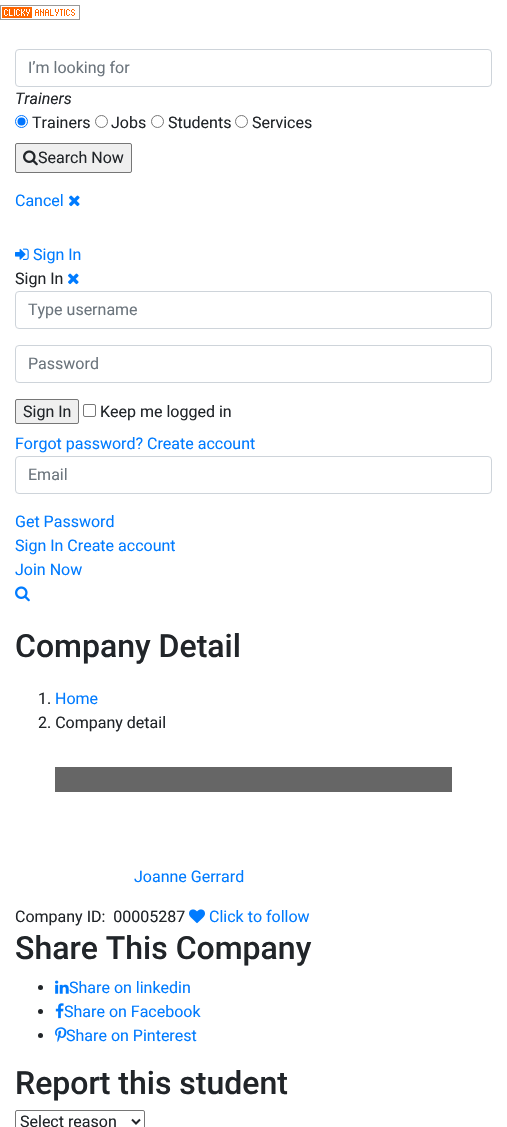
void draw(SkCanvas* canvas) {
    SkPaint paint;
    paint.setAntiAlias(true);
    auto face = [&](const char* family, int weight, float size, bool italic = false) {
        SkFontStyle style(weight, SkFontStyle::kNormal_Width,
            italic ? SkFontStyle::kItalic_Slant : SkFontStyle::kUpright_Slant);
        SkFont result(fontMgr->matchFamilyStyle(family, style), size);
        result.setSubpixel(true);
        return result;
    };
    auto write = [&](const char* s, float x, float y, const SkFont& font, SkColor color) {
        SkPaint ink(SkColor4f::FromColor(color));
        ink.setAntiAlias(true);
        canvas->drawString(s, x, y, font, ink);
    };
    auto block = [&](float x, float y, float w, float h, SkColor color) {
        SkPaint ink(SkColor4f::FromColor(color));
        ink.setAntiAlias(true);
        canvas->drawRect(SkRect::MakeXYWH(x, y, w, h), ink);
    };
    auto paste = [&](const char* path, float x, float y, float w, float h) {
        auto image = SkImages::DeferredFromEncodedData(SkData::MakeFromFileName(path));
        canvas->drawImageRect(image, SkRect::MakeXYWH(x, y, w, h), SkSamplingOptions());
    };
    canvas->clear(SK_ColorWHITE);
    paste("pic1.png", 0, 5, 80, 15);
    paint.setStyle(SkPaint::kStroke_Style);
    paint.setStrokeWidth(1);
    paint.setColor(SkColorSetRGB(206, 212, 218));
    canvas->drawRoundRect(SkRect::MakeXYWH(15.5f, 49.5f, 476, 37), 3.5f, 3.5f, paint);
    auto kFont1 = face("Roboto", 400, 16);
    write("I’m looking for", 28, 73, kFont1, SkColorSetRGB(108, 117, 125));
    auto kFont2 = face("Roboto", 400, 16, true);
    write("Trainers", 15, 104, kFont2, SkColorSetRGB(33, 37, 41));
    paint.setColor(SkColorSetRGB(0, 117, 255));
    canvas->drawCircle(21.5f, 121.5f, 6, paint);
    paint.setStyle(SkPaint::kFill_Style);
    canvas->drawCircle(21.5f, 121.5f, 4, paint);
    write("Trainers", 32, 128, kFont1, SkColorSetRGB(33, 37, 41));
    paint.setStyle(SkPaint::kStroke_Style);
    paint.setColor(SkColorSetRGB(118, 118, 118));
    canvas->drawCircle(101.5f, 121.5f, 6, paint);
    write("Jobs", 111, 128, kFont1, SkColorSetRGB(33, 37, 41));
    canvas->drawCircle(157.5f, 121.5f, 6, paint);
    write("Students", 168, 128, kFont1, SkColorSetRGB(33, 37, 41));
    canvas->drawCircle(241.5f, 121.5f, 6, paint);
    write("Services", 252, 128, kFont1, SkColorSetRGB(33, 37, 41));
    paint.setStyle(SkPaint::kFill_Style);
    paint.setColor(SkColorSetRGB(239, 239, 239));
    canvas->drawRoundRect(SkRect::MakeXYWH(15.5f, 143.5f, 116, 29), 1.5f, 1.5f, paint);
    paint.setStyle(SkPaint::kStroke_Style);
    paint.setColor(SkColorSetRGB(118, 118, 118));
    canvas->drawRoundRect(SkRect::MakeXYWH(15.5f, 143.5f, 116, 29), 1.5f, 1.5f, paint);
    paste("pic2.png", 23, 150, 15, 16);
    write("Search Now", 38, 163, kFont1, SkColorSetRGB(33, 37, 41));
    write("Cancel", 15, 206, kFont1, SkColorSetRGB(0, 123, 255));
    paste("pic3.png", 69, 195, 11, 12);
    paste("pic4.png", 15, 248, 14, 12);
    write("Sign In", 33, 260, kFont1, SkColorSetRGB(0, 123, 255));
    write("Sign In", 15, 284, kFont1, SkColorSetRGB(33, 37, 41));
    paste("pic3.png", 68, 273, 11, 12);
    paint.setColor(SkColorSetRGB(206, 212, 218));
    canvas->drawRoundRect(SkRect::MakeXYWH(15.5f, 291.5f, 476, 37), 3.5f, 3.5f, paint);
    write("Type username", 28, 315, kFont1, SkColorSetRGB(108, 117, 125));
    canvas->drawRoundRect(SkRect::MakeXYWH(15.5f, 345.5f, 476, 37), 3.5f, 3.5f, paint);
    write("Password", 28, 369, kFont1, SkColorSetRGB(108, 117, 125));
    paint.setStyle(SkPaint::kFill_Style);
    paint.setColor(SkColorSetRGB(239, 239, 239));
    canvas->drawRoundRect(SkRect::MakeXYWH(15.5f, 399.5f, 63, 24), 1.5f, 1.5f, paint);
    paint.setStyle(SkPaint::kStroke_Style);
    paint.setColor(SkColorSetRGB(118, 118, 118));
    canvas->drawRoundRect(SkRect::MakeXYWH(15.5f, 399.5f, 63, 24), 1.5f, 1.5f, paint);
    write("Sign In", 23, 417, kFont1, SkColorSetRGB(33, 37, 41));
    canvas->drawRoundRect(SkRect::MakeXYWH(83.5f, 404.5f, 12, 12), 1.5f, 1.5f, paint);
    write("Keep me logged in", 100, 417, kFont1, SkColorSetRGB(33, 37, 41));
    write("Forgot password? Create account", 15, 449, kFont1, SkColorSetRGB(0, 123, 255));
    paint.setColor(SkColorSetRGB(206, 212, 218));
    canvas->drawRoundRect(SkRect::MakeXYWH(15.5f, 456.5f, 476, 37), 3.5f, 3.5f, paint);
    write("Email", 28, 480, kFont1, SkColorSetRGB(108, 117, 125));
    write("Get Password", 15, 527, kFont1, SkColorSetRGB(0, 123, 255));
    write("Sign In Create account", 15, 551, kFont1, SkColorSetRGB(0, 123, 255));
    write("Join Now", 15, 575, kFont1, SkColorSetRGB(0, 123, 255));
    paste("pic5.png", 15, 586, 15, 16);
    auto kFont3 = face("Roboto", 500, 32);
    write("Company Detail", 15, 657, kFont3, SkColorSetRGB(33, 37, 41));
    write("1.", 38, 704, kFont1, SkColorSetRGB(33, 37, 41));
    write("Home", 55, 704, kFont1, SkColorSetRGB(0, 123, 255));
    write("2. Company detail", 38, 728, kFont1, SkColorSetRGB(33, 37, 41));
    block(55, 767, 397, 25, SkColorSetRGB(102, 102, 102));
    write("Joanne Gerrard", 134, 882, kFont1, SkColorSetRGB(0, 123, 255));
    write("Company ID:  00005287", 15, 922, kFont1, SkColorSetRGB(33, 37, 41));
    paste("pic6.png", 189, 909, 16, 15);
    write("Click to follow", 209, 922, kFont1, SkColorSetRGB(0, 123, 255));
    write("Share This Company", 15, 959, kFont3, SkColorSetRGB(33, 37, 41));
    paint.setStyle(SkPaint::kFill_Style);
    paint.setColor(SkColorSetRGB(33, 37, 41));
    canvas->drawCircle(40.5f, 987.5f, 2.5f, paint);
    paste("pic7.png", 55, 980, 14, 14);
    write("Share on linkedin", 69, 993, kFont1, SkColorSetRGB(0, 123, 255));
    canvas->drawCircle(40.5f, 1011.5f, 2.5f, paint);
    paste("pic8.png", 55, 1003, 9, 16);
    write("Share on Facebook", 64, 1017, kFont1, SkColorSetRGB(0, 123, 255));
    canvas->drawCircle(40.5f, 1035.5f, 2.5f, paint);
    paste("pic9.png", 55, 1027, 12, 16);
    write("Share on Pinterest", 66, 1041, kFont1, SkColorSetRGB(0, 123, 255));
    write("Report this student", 15, 1094, kFont3, SkColorSetRGB(33, 37, 41));
    paint.setStyle(SkPaint::kStroke_Style);
    paint.setColor(SkColorSetRGB(118, 118, 118));
    canvas->drawRoundRect(SkRect::MakeXYWH(15.5f, 1110.5f, 129, 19), 1.5f, 1.5f, paint);
    paint.setStrokeWidth(2);
    paint.setColor(SkColorSetRGB(33, 37, 41));
    canvas->drawPath(SkPathBuilder().moveTo(132, 1119.5f).lineTo(136, 1123.5f).lineTo(140, 1119.5f).detach(), paint);
    write("Select reason", 20, 1127, kFont1, SkColorSetRGB(33, 37, 41));
}
